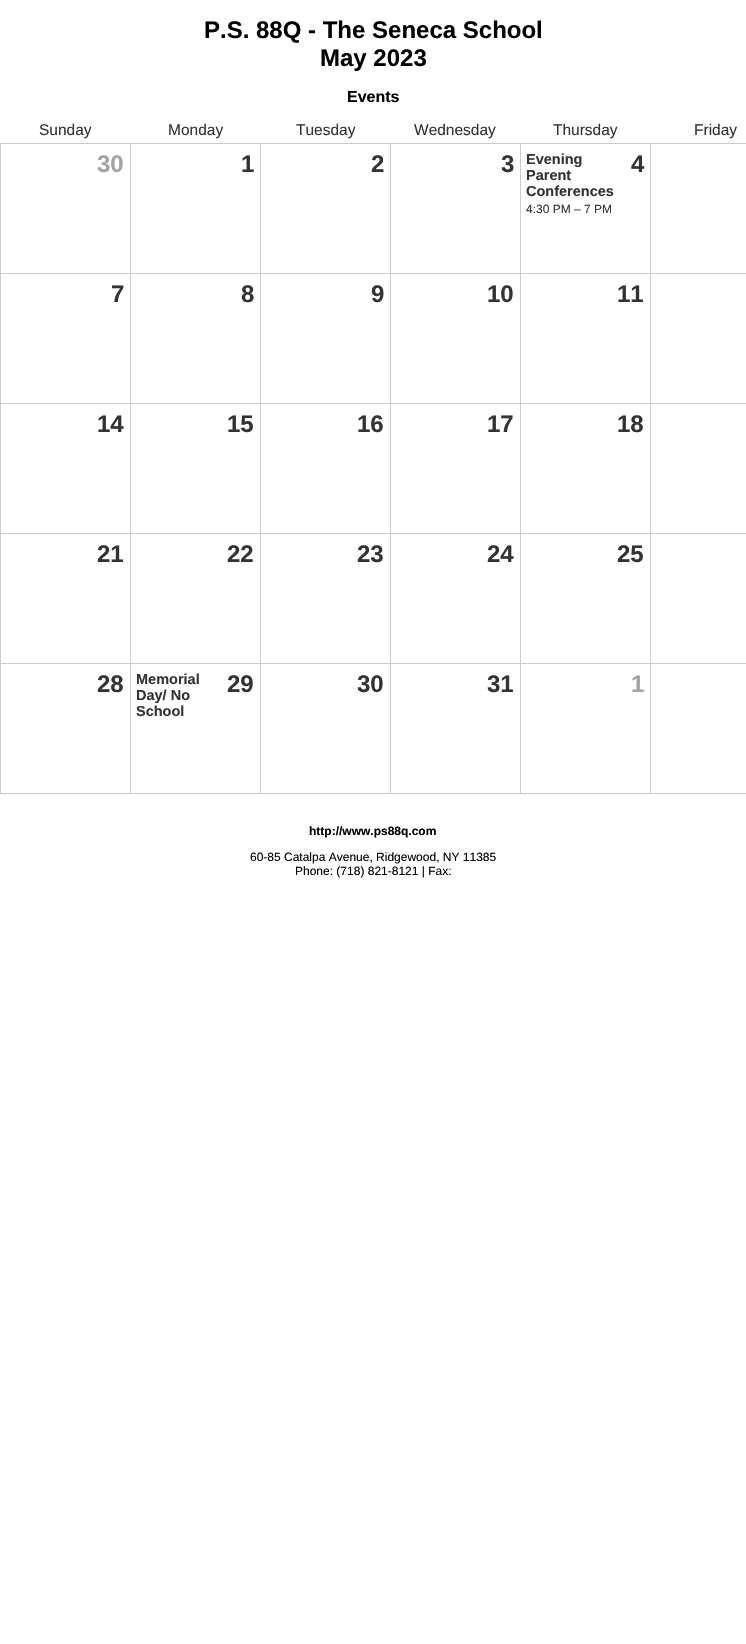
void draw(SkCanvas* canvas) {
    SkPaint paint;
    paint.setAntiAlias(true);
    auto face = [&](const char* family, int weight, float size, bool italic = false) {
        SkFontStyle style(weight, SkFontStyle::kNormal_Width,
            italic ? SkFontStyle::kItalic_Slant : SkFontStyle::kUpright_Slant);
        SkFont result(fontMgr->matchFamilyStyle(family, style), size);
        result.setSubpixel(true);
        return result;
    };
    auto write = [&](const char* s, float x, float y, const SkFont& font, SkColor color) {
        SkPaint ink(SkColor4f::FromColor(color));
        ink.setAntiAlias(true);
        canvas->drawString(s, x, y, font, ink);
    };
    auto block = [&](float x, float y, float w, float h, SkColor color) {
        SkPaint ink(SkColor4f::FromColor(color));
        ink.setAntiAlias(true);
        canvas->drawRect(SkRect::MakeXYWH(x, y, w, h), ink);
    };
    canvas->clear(SK_ColorWHITE);
    auto kFont1 = face("Liberation Sans", 700, 24);
    write("P.S. 88Q - The Seneca School", 204, 38, kFont1, SK_ColorBLACK);
    write("May 2023", 320, 66, kFont1, SK_ColorBLACK);
    auto kFont2 = face("Liberation Sans", 700, 16);
    write("Events", 347, 102, kFont2, SK_ColorBLACK);
    auto kFont3 = face("Liberation Sans", 400, 15.5f);
    write("Sunday", 39, 135, kFont3, SkColorSetRGB(51, 51, 51));
    write("Monday", 168, 135, kFont3, SkColorSetRGB(51, 51, 51));
    write("Tuesday", 296, 135, kFont3, SkColorSetRGB(51, 51, 51));
    write("Wednesday", 414, 135, kFont3, SkColorSetRGB(51, 51, 51));
    write("Thursday", 553, 135, kFont3, SkColorSetRGB(51, 51, 51));
    write("Friday", 694, 135, kFont3, SkColorSetRGB(51, 51, 51));
    block(0, 143, 746, 1, SkColorSetRGB(204, 204, 204));
    block(650, 793, 96, 1, SkColorSetRGB(204, 204, 204));
    block(650, 663, 1, 131, SkColorSetRGB(204, 204, 204));
    block(650, 663, 96, 1, SkColorSetRGB(204, 204, 204));
    block(650, 533, 1, 131, SkColorSetRGB(204, 204, 204));
    block(650, 533, 96, 1, SkColorSetRGB(204, 204, 204));
    block(650, 403, 1, 131, SkColorSetRGB(204, 204, 204));
    block(650, 403, 96, 1, SkColorSetRGB(204, 204, 204));
    block(650, 273, 1, 131, SkColorSetRGB(204, 204, 204));
    block(650, 273, 96, 1, SkColorSetRGB(204, 204, 204));
    block(650, 143, 1, 131, SkColorSetRGB(204, 204, 204));
    block(520, 793, 131, 1, SkColorSetRGB(204, 204, 204));
    block(520, 663, 1, 131, SkColorSetRGB(204, 204, 204));
    block(520, 663, 131, 1, SkColorSetRGB(204, 204, 204));
    block(520, 533, 1, 131, SkColorSetRGB(204, 204, 204));
    block(520, 533, 131, 1, SkColorSetRGB(204, 204, 204));
    block(520, 403, 1, 131, SkColorSetRGB(204, 204, 204));
    block(520, 403, 131, 1, SkColorSetRGB(204, 204, 204));
    block(520, 273, 1, 131, SkColorSetRGB(204, 204, 204));
    block(520, 273, 131, 1, SkColorSetRGB(204, 204, 204));
    block(520, 143, 1, 131, SkColorSetRGB(204, 204, 204));
    block(390, 793, 131, 1, SkColorSetRGB(204, 204, 204));
    block(390, 663, 1, 131, SkColorSetRGB(204, 204, 204));
    block(390, 663, 131, 1, SkColorSetRGB(204, 204, 204));
    block(390, 533, 1, 131, SkColorSetRGB(204, 204, 204));
    block(390, 533, 131, 1, SkColorSetRGB(204, 204, 204));
    block(390, 403, 1, 131, SkColorSetRGB(204, 204, 204));
    block(390, 403, 131, 1, SkColorSetRGB(204, 204, 204));
    block(390, 273, 1, 131, SkColorSetRGB(204, 204, 204));
    block(390, 273, 131, 1, SkColorSetRGB(204, 204, 204));
    block(390, 143, 1, 131, SkColorSetRGB(204, 204, 204));
    block(260, 793, 131, 1, SkColorSetRGB(204, 204, 204));
    block(260, 663, 1, 131, SkColorSetRGB(204, 204, 204));
    block(260, 663, 131, 1, SkColorSetRGB(204, 204, 204));
    block(260, 533, 1, 131, SkColorSetRGB(204, 204, 204));
    block(260, 533, 131, 1, SkColorSetRGB(204, 204, 204));
    block(260, 403, 1, 131, SkColorSetRGB(204, 204, 204));
    block(260, 403, 131, 1, SkColorSetRGB(204, 204, 204));
    block(260, 273, 1, 131, SkColorSetRGB(204, 204, 204));
    block(260, 273, 131, 1, SkColorSetRGB(204, 204, 204));
    block(260, 143, 1, 131, SkColorSetRGB(204, 204, 204));
    block(130, 793, 131, 1, SkColorSetRGB(204, 204, 204));
    block(130, 663, 1, 131, SkColorSetRGB(204, 204, 204));
    block(130, 663, 131, 1, SkColorSetRGB(204, 204, 204));
    block(130, 533, 1, 131, SkColorSetRGB(204, 204, 204));
    block(130, 533, 131, 1, SkColorSetRGB(204, 204, 204));
    block(130, 403, 1, 131, SkColorSetRGB(204, 204, 204));
    block(130, 403, 131, 1, SkColorSetRGB(204, 204, 204));
    block(130, 273, 1, 131, SkColorSetRGB(204, 204, 204));
    block(130, 273, 131, 1, SkColorSetRGB(204, 204, 204));
    block(130, 143, 1, 131, SkColorSetRGB(204, 204, 204));
    block(0, 793, 131, 1, SkColorSetRGB(204, 204, 204));
    block(0, 663, 1, 131, SkColorSetRGB(204, 204, 204));
    block(0, 663, 131, 1, SkColorSetRGB(204, 204, 204));
    block(0, 533, 1, 131, SkColorSetRGB(204, 204, 204));
    block(0, 533, 131, 1, SkColorSetRGB(204, 204, 204));
    block(0, 403, 1, 131, SkColorSetRGB(204, 204, 204));
    block(0, 403, 131, 1, SkColorSetRGB(204, 204, 204));
    block(0, 273, 1, 131, SkColorSetRGB(204, 204, 204));
    block(0, 273, 131, 1, SkColorSetRGB(204, 204, 204));
    block(0, 143, 1, 131, SkColorSetRGB(204, 204, 204));
    write("30", 97, 172, kFont1, SkColorSetRGB(163, 163, 163));
    write("1", 241, 172, kFont1, SkColorSetRGB(51, 51, 51));
    write("2", 371, 172, kFont1, SkColorSetRGB(51, 51, 51));
    write("3", 501, 172, kFont1, SkColorSetRGB(51, 51, 51));
    auto kFont4 = face("Liberation Sans", 700, 14.5f);
    write("Evening", 526, 164, kFont4, SkColorSetRGB(51, 51, 51));
    write("Parent", 526, 180, kFont4, SkColorSetRGB(51, 51, 51));
    write("Conferences", 526, 196, kFont4, SkColorSetRGB(51, 51, 51));
    auto kFont5 = face("Liberation Sans", 400, 12);
    write("4:30 PM – 7 PM", 526, 213, kFont5, SkColorSetRGB(51, 51, 51));
    write("4", 631, 172, kFont1, SkColorSetRGB(51, 51, 51));
    write("7", 111, 302, kFont1, SkColorSetRGB(51, 51, 51));
    write("8", 241, 302, kFont1, SkColorSetRGB(51, 51, 51));
    write("9", 371, 302, kFont1, SkColorSetRGB(51, 51, 51));
    write("10", 487, 302, kFont1, SkColorSetRGB(51, 51, 51));
    write("11", 617, 302, kFont1, SkColorSetRGB(51, 51, 51));
    write("14", 97, 432, kFont1, SkColorSetRGB(51, 51, 51));
    write("15", 227, 432, kFont1, SkColorSetRGB(51, 51, 51));
    write("16", 357, 432, kFont1, SkColorSetRGB(51, 51, 51));
    write("17", 487, 432, kFont1, SkColorSetRGB(51, 51, 51));
    write("18", 617, 432, kFont1, SkColorSetRGB(51, 51, 51));
    write("21", 97, 562, kFont1, SkColorSetRGB(51, 51, 51));
    write("22", 227, 562, kFont1, SkColorSetRGB(51, 51, 51));
    write("23", 357, 562, kFont1, SkColorSetRGB(51, 51, 51));
    write("24", 487, 562, kFont1, SkColorSetRGB(51, 51, 51));
    write("25", 617, 562, kFont1, SkColorSetRGB(51, 51, 51));
    write("28", 97, 692, kFont1, SkColorSetRGB(51, 51, 51));
    write("Memorial", 136, 684, kFont4, SkColorSetRGB(51, 51, 51));
    write("Day/ No", 136, 700, kFont4, SkColorSetRGB(51, 51, 51));
    write("School", 136, 716, kFont4, SkColorSetRGB(51, 51, 51));
    write("29", 227, 692, kFont1, SkColorSetRGB(51, 51, 51));
    write("30", 357, 692, kFont1, SkColorSetRGB(51, 51, 51));
    write("31", 487, 692, kFont1, SkColorSetRGB(51, 51, 51));
    write("1", 631, 692, kFont1, SkColorSetRGB(163, 163, 163));
    auto kFont6 = face("Liberation Sans", 700, 12);
    write("http://www.ps88q.com", 309, 835, kFont6, SK_ColorBLACK);
    write("60-85 Catalpa Avenue, Ridgewood, NY 11385", 250, 861, kFont5, SK_ColorBLACK);
    write("Phone: (718) 821-8121 | Fax:", 295, 875, kFont5, SK_ColorBLACK);
}
